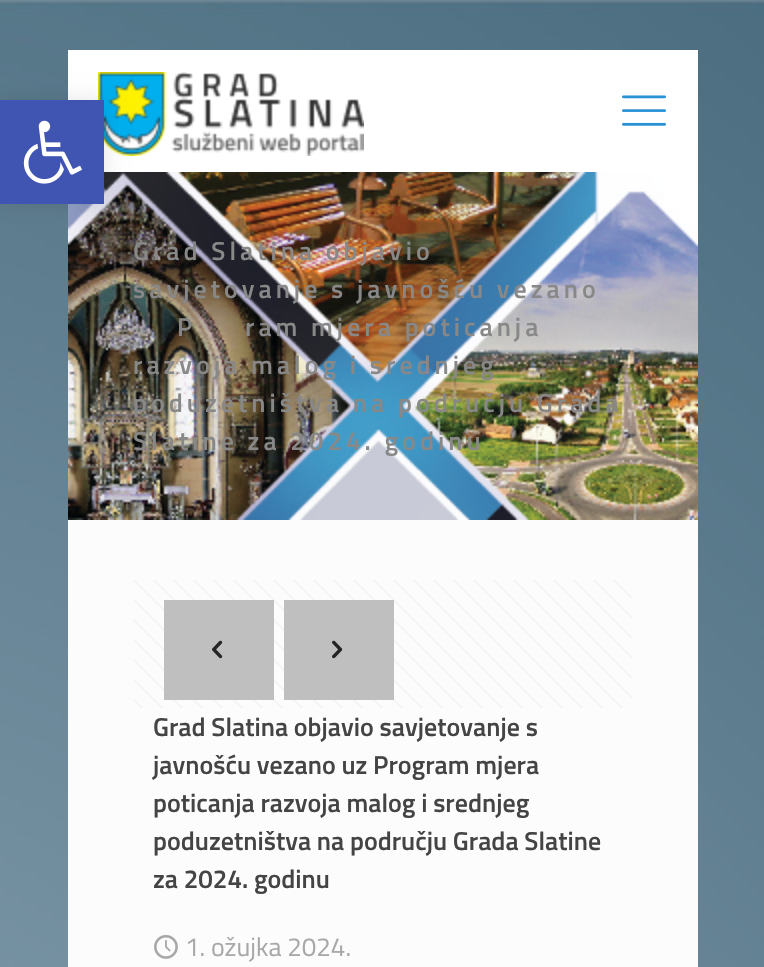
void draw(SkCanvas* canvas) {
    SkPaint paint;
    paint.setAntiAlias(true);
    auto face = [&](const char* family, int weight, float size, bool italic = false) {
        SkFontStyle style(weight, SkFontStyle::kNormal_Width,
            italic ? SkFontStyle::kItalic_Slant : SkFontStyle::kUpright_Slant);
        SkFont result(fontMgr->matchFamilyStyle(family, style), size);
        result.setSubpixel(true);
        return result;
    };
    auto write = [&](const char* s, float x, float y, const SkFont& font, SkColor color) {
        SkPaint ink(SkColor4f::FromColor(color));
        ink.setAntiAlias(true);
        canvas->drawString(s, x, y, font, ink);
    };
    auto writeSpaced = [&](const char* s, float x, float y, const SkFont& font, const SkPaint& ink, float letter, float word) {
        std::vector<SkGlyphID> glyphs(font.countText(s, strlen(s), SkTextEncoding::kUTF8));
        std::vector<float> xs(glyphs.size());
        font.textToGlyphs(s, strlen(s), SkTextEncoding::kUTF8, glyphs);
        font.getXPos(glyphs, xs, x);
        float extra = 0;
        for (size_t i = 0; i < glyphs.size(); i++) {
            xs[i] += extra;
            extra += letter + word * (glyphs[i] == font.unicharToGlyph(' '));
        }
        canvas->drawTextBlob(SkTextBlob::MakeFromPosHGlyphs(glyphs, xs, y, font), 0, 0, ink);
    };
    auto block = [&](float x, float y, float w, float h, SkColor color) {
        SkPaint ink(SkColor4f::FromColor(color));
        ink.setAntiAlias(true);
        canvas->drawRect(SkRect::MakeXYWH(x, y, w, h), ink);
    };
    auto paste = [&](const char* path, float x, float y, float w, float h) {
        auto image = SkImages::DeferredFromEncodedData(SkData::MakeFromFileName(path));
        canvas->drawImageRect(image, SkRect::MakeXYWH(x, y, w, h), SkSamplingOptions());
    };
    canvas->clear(SK_ColorWHITE);
    paste("pic1.png", 0, 0, 764, 967);
    block(68, 50, 630, 122, SK_ColorWHITE);
    paste("pic3.png", 98, 72, 266, 84);
    paste("pic5.png", 68, 172, 630, 348);
    paint.setColor(SkColorSetARGB(26, 0, 0, 0));
    paint.setMaskFilter(SkMaskFilter::MakeBlur(kNormal_SkBlurStyle, 10));
    canvas->drawRect(SkRect::MakeXYWH(0, 100, 104, 104), paint);
    paint.setMaskFilter(nullptr);
    block(0, 100, 104, 104, SkColorSetRGB(64, 84, 178));
    paste("pic2.png", 23, 120, 59, 64);
    block(68, 520, 630, 447, SkColorSetRGB(252, 252, 252));
    paste("pic4.png", 622, 95, 44, 31);
    auto kFont1 = face("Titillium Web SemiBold", 600, 26);
    paint.setColor(SkColorSetRGB(136, 136, 136));
    writeSpaced("Grad Slatina objavio", 133, 260, kFont1, paint, 4, 0);
    writeSpaced("savjetovanje s javnošću vezano", 133, 298, kFont1, paint, 4, 0);
    writeSpaced("P", 177, 336, kFont1, paint, 4, 0);
    writeSpaced("ram mjera poticanja", 245, 336, kFont1, paint, 4, 0);
    writeSpaced("razvoja malog i srednjeg", 133, 374, kFont1, paint, 4, 0);
    writeSpaced("poduzetništva na području Grada", 133, 412, kFont1, paint, 4, 0);
    writeSpaced("Slatine za 2024. godinu", 133, 450, kFont1, paint, 4, 0);
    paste("pic6.png", 134, 580, 498, 128);
    block(164, 600, 110, 100, SkColorSetRGB(191, 191, 191));
    paste("pic7.png", 212, 640, 11, 19);
    block(284, 600, 110, 100, SkColorSetRGB(191, 191, 191));
    paste("pic8.png", 332, 640, 11, 19);
    write("Grad Slatina objavio savjetovanje s", 153, 736, kFont1, SkColorSetRGB(68, 68, 68));
    write("javnošću vezano uz Program mjera", 153, 774, kFont1, SkColorSetRGB(68, 68, 68));
    write("poticanja razvoja malog i srednjeg", 153, 812, kFont1, SkColorSetRGB(68, 68, 68));
    write("poduzetništva na području Grada Slatine", 153, 850, kFont1, SkColorSetRGB(68, 68, 68));
    write("za 2024. godinu", 153, 888, kFont1, SkColorSetRGB(68, 68, 68));
    paste("pic9.png", 154, 935, 24, 24);
    auto kFont2 = face("Titillium Web", 400, 26);
    write("1. ožujka 2024.", 185, 956, kFont2, SkColorSetRGB(168, 168, 168));
}
